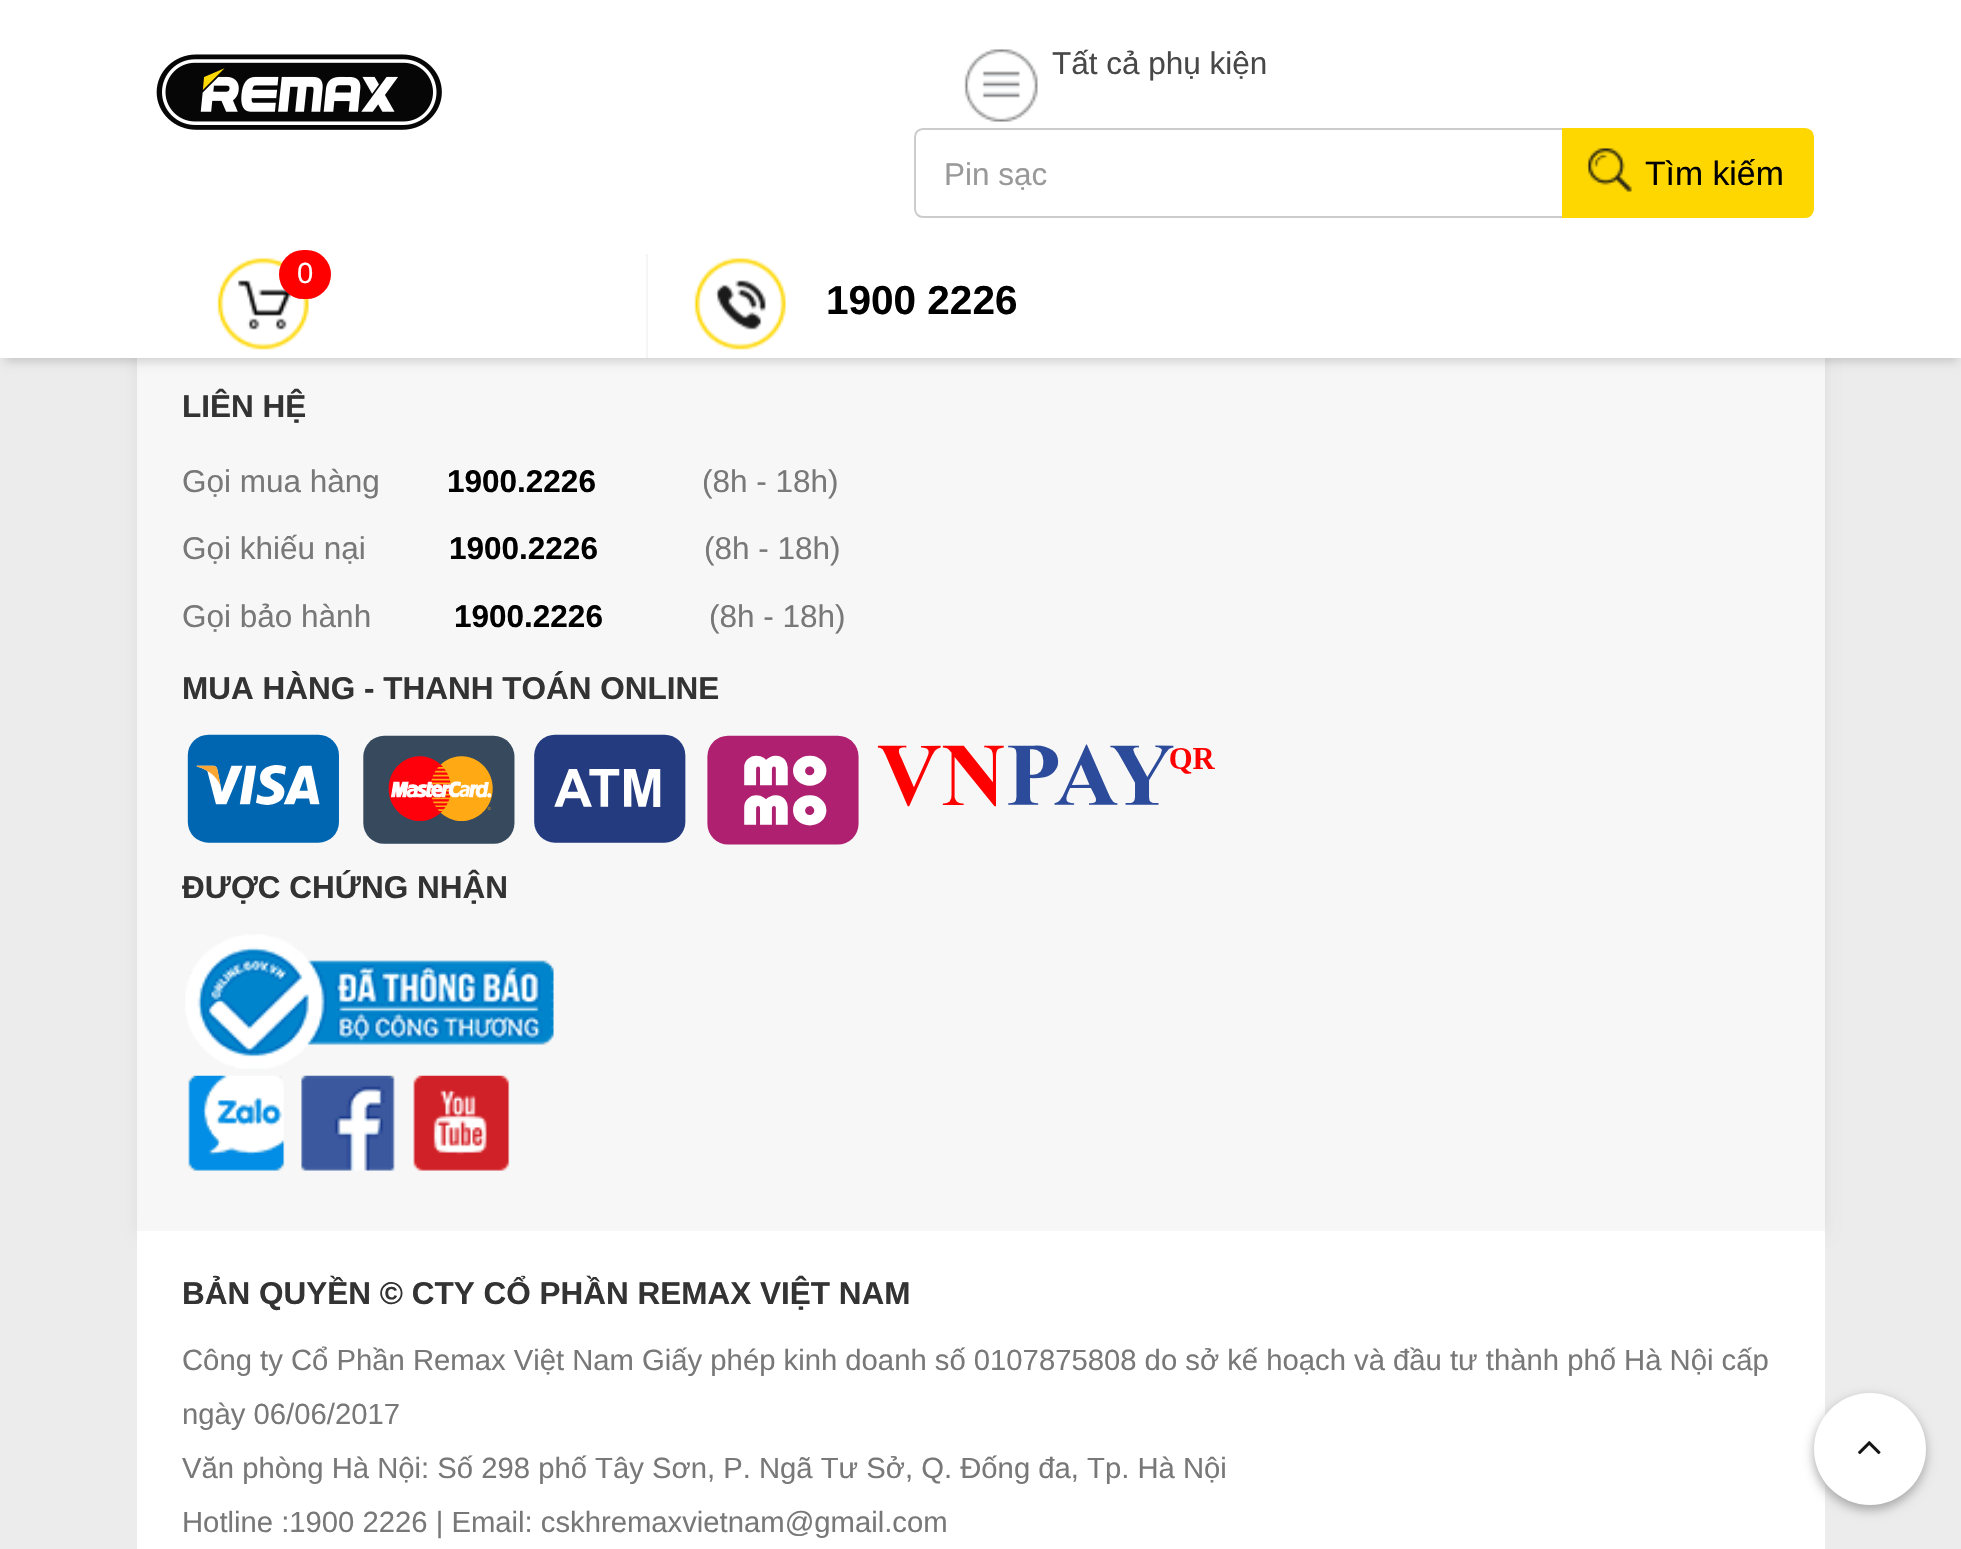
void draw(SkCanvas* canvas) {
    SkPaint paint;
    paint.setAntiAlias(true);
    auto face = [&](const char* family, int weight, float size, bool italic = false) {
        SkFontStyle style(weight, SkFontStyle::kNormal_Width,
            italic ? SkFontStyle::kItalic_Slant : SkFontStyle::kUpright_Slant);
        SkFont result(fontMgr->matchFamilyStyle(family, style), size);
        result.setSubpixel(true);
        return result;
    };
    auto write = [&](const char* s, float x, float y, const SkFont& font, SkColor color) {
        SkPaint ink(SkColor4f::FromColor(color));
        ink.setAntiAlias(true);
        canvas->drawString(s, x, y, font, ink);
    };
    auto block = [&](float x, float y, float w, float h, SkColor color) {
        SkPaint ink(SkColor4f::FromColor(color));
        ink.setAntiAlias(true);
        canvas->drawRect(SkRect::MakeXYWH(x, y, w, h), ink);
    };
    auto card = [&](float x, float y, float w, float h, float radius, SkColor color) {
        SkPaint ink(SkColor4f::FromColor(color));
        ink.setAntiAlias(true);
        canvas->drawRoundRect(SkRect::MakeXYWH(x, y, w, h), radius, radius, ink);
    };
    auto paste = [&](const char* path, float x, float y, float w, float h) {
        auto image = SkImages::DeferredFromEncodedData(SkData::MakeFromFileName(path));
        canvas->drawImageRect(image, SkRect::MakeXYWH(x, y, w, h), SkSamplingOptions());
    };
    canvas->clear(SkColorSetRGB(236, 236, 236));
    paint.setColor(SkColorSetRGB(220, 220, 220));
    paint.setMaskFilter(SkMaskFilter::MakeBlur(kNormal_SkBlurStyle, 7));
    canvas->drawRect(SkRect::MakeXYWH(137, -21, 1688, 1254), paint);
    paint.setMaskFilter(nullptr);
    block(137, 358, 1688, 873, SkColorSetRGB(247, 247, 247));
    paint.setColor(SkColorSetARGB(38, 0, 0, 0));
    paint.setMaskFilter(SkMaskFilter::MakeBlur(kNormal_SkBlurStyle, 4.5f));
    canvas->drawRect(SkRect::MakeXYWH(5, 14, 1953, 348), paint);
    paint.setMaskFilter(nullptr);
    block(0, 0, 1961, 358, SK_ColorWHITE);
    paste("pic1.png", 156, 54, 286, 76);
    paste("pic2.png", 964, 49, 74, 73);
    auto kFont1 = face("Liberation Sans", 400, 31.5f);
    write("Tất cả phụ kiện", 1052, 74, kFont1, SkColorSetRGB(72, 72, 72));
    paint.setStyle(SkPaint::kStroke_Style);
    paint.setStrokeWidth(2);
    paint.setColor(SkColorSetRGB(204, 204, 204));
    canvas->drawPath(SkPathBuilder().moveTo(923, 129).lineTo(1563, 129).lineTo(1563, 217).lineTo(923, 217).cubicTo(918.5f, 217, 915, 213.5f, 915, 209).lineTo(915, 137).cubicTo(915, 132.5f, 918.5f, 129, 923, 129).close().detach(), paint);
    write("Pin sạc", 944, 185, kFont1, SkColorSetRGB(153, 153, 153));
    paint.setStyle(SkPaint::kFill_Style);
    paint.setColor(SkColorSetRGB(254, 215, 0));
    canvas->drawPath(SkPathBuilder().moveTo(1563, 129).lineTo(1805, 129).cubicTo(1809.5f, 129, 1813, 132.5f, 1813, 137).lineTo(1813, 209).cubicTo(1813, 213.5f, 1809.5f, 217, 1805, 217).lineTo(1563, 217).close().detach(), paint);
    paint.setStyle(SkPaint::kStroke_Style);
    canvas->drawPath(SkPathBuilder().moveTo(1563, 129).lineTo(1805, 129).cubicTo(1809.5f, 129, 1813, 132.5f, 1813, 137).lineTo(1813, 209).cubicTo(1813, 213.5f, 1809.5f, 217, 1805, 217).lineTo(1563, 217).close().detach(), paint);
    paste("pic3.png", 1586, 148, 46, 44);
    auto kFont2 = face("Liberation Sans", 400, 33.75f);
    write("Tìm kiếm", 1645, 185, kFont2, SK_ColorBLACK);
    block(646, 254, 2, 104, SkColorSetRGB(245, 245, 245));
    paste("pic4.png", 217, 257, 92, 93);
    card(279, 250, 52, 49, 24.5f, SkColorSetRGB(255, 0, 0));
    auto kFont3 = face("Liberation Sans", 400, 29.25f);
    write("0", 297, 283, kFont3, SK_ColorWHITE);
    paste("pic5.png", 694, 257, 92, 93);
    auto kFont4 = face("Liberation Sans", 700, 40.5f);
    write("1900 2226", 826, 314, kFont4, SK_ColorBLACK);
    auto kFont5 = face("Liberation Sans", 700, 31.5f);
    write("LIÊN HỆ", 182, 417, kFont5, SkColorSetRGB(51, 51, 51));
    write("Gọi mua hàng", 182, 492, kFont1, SkColorSetRGB(120, 120, 120));
    write("1900.2226", 447, 492, kFont5, SK_ColorBLACK);
    write("(8h - 18h)", 702, 492, kFont1, SkColorSetRGB(120, 120, 120));
    write("Gọi khiếu nại", 182, 559, kFont1, SkColorSetRGB(120, 120, 120));
    write("1900.2226", 449, 559, kFont5, SK_ColorBLACK);
    write("(8h - 18h)", 704, 559, kFont1, SkColorSetRGB(120, 120, 120));
    write("Gọi bảo hành", 182, 627, kFont1, SkColorSetRGB(120, 120, 120));
    write("1900.2226", 454, 627, kFont5, SK_ColorBLACK);
    write("(8h - 18h)", 709, 627, kFont1, SkColorSetRGB(120, 120, 120));
    write("MUA HÀNG - THANH TOÁN ONLINE", 182, 699, kFont5, SkColorSetRGB(51, 51, 51));
    paste("pic6.png", 187, 734, 152, 109);
    paste("pic7.png", 363, 735, 152, 109);
    paste("pic8.png", 534, 734, 152, 109);
    paste("pic9.png", 707, 735, 152, 110);
    paste("pic10.png", 877, 744, 338, 63);
    write("ĐƯỢC CHỨNG NHẬN", 182, 898, kFont5, SkColorSetRGB(51, 51, 51));
    paste("pic11.png", 185, 934, 369, 135);
    paste("pic12.png", 188, 1075, 97, 96);
    paste("pic13.png", 301, 1075, 94, 96);
    paste("pic14.png", 413, 1075, 97, 96);
    block(137, 1231, 1688, 318, SK_ColorWHITE);
    write("BẢN QUYỀN © CTY CỔ PHẦN REMAX VIỆT NAM", 182, 1304, kFont5, SkColorSetRGB(51, 51, 51));
    write("Công ty Cổ Phần Remax Việt Nam Giấy phép kinh doanh số 0107875808 do sở kế hoạch và đầu tư thành phố Hà Nội cấp", 182, 1370, kFont3, SkColorSetRGB(120, 120, 120));
    write("ngày 06/06/2017", 182, 1424, kFont3, SkColorSetRGB(120, 120, 120));
    write("Văn phòng Hà Nội: Số 298 phố Tây Sơn, P. Ngã Tư Sở, Q. Đống đa, Tp. Hà Nội", 182, 1478, kFont3, SkColorSetRGB(120, 120, 120));
    write("Hotline :1900 2226 | Email: cskhremaxvietnam@gmail.com", 182, 1532, kFont3, SkColorSetRGB(120, 120, 120));
    paint.setStyle(SkPaint::kFill_Style);
    paint.setColor(SkColorSetRGB(167, 167, 167));
    paint.setMaskFilter(SkMaskFilter::MakeBlur(kNormal_SkBlurStyle, 5.5f));
    canvas->drawRoundRect(SkRect::MakeXYWH(1814, 1397, 112, 113), 56, 56, paint);
    paint.setMaskFilter(nullptr);
    paint.setColor(SK_ColorWHITE);
    canvas->drawCircle(1870, 1449, 56, paint);
    paste("pic15.png", 1858, 1441, 23, 14);
}
